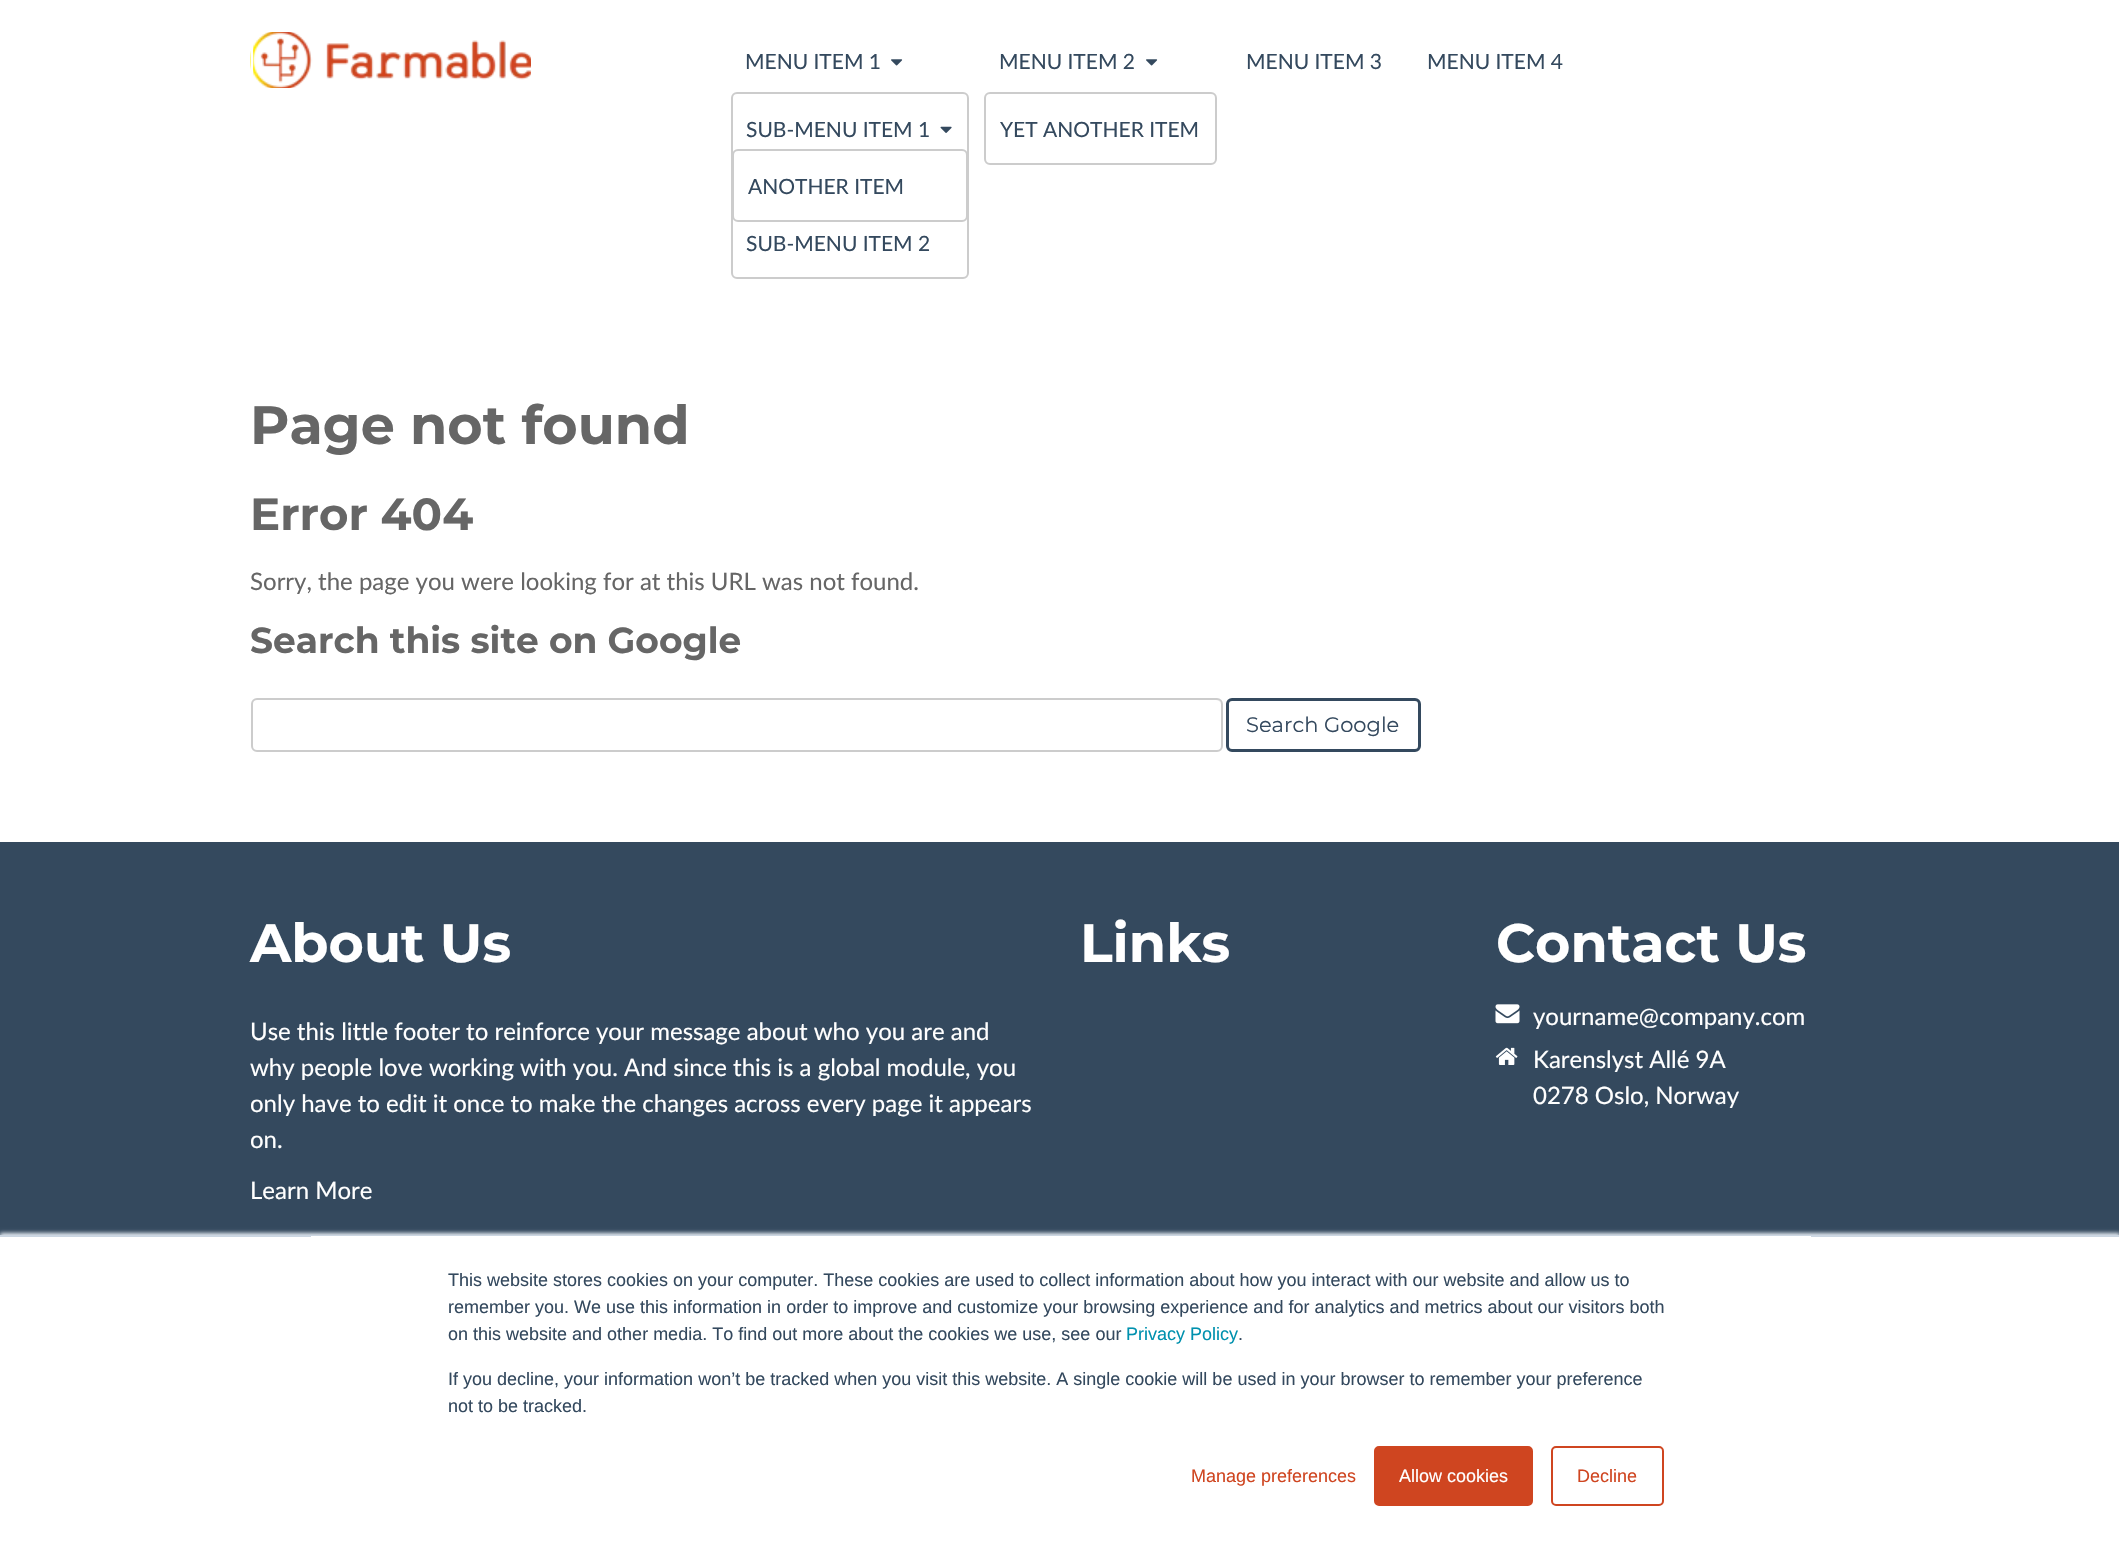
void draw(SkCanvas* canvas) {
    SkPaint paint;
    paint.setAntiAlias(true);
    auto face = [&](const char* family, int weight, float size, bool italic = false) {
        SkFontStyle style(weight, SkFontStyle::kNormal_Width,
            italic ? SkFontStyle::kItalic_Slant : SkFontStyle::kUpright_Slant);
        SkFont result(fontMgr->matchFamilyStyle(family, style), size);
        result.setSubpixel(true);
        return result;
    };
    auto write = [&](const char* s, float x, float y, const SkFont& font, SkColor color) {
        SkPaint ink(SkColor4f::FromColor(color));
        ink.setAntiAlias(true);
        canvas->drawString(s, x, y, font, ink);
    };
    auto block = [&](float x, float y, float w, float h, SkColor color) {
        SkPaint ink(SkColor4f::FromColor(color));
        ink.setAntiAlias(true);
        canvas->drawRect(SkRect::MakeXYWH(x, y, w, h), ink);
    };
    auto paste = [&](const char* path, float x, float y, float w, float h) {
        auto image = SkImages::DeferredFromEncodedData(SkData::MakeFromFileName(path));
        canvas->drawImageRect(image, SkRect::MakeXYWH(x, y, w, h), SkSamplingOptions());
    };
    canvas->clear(SK_ColorWHITE);
    paste("pic1.png", 250, 32, 281, 56);
    paint.setStyle(SkPaint::kStroke_Style);
    paint.setStrokeWidth(2);
    paint.setColor(SK_ColorWHITE);
    canvas->drawRect(SkRect::MakeXYWH(252, 31, 280, 58), paint);
    auto kFont1 = face("Lato", 400, 21);
    write("MENU ITEM 1", 745, 69, kFont1, SkColorSetRGB(52, 73, 94));
    paste("pic2.png", 891, 59, 12, 7);
    paint.setColor(SkColorSetRGB(204, 204, 204));
    canvas->drawRoundRect(SkRect::MakeXYWH(732, 93, 236, 185), 5, 5, paint);
    write("SUB-MENU ITEM 1", 746, 137, kFont1, SkColorSetRGB(52, 73, 94));
    paste("pic3.png", 940, 126, 12, 7);
    paint.setStyle(SkPaint::kFill_Style);
    paint.setColor(SK_ColorWHITE);
    canvas->drawRoundRect(SkRect::MakeXYWH(733, 150, 234, 71), 5, 5, paint);
    paint.setStyle(SkPaint::kStroke_Style);
    paint.setColor(SkColorSetRGB(204, 204, 204));
    canvas->drawRoundRect(SkRect::MakeXYWH(733, 150, 234, 71), 5, 5, paint);
    write("ANOTHER ITEM", 748, 194, kFont1, SkColorSetRGB(52, 73, 94));
    write("SUB-MENU ITEM 2", 746, 251, kFont1, SkColorSetRGB(52, 73, 94));
    write("MENU ITEM 2", 999, 69, kFont1, SkColorSetRGB(52, 73, 94));
    paste("pic2.png", 1146, 59, 12, 7);
    canvas->drawRoundRect(SkRect::MakeXYWH(985, 93, 231, 71), 5, 5, paint);
    write("YET ANOTHER ITEM", 1000, 137, kFont1, SkColorSetRGB(52, 73, 94));
    write("MENU ITEM 3", 1246, 69, kFont1, SkColorSetRGB(52, 73, 94));
    write("MENU ITEM 4", 1427, 69, kFont1, SkColorSetRGB(52, 73, 94));
    auto kFont2 = face("Montserrat", 700, 54);
    write("Page not found", 250, 444, kFont2, SkColorSetRGB(102, 102, 102));
    auto kFont3 = face("Montserrat", 700, 45);
    write("Error 404", 250, 530, kFont3, SkColorSetRGB(102, 102, 102));
    auto kFont4 = face("Lato", 400, 24);
    write("Sorry, the page you were looking for at this URL was not found.", 250, 590, kFont4, SkColorSetRGB(102, 102, 102));
    auto kFont5 = face("Montserrat", 700, 36);
    write("Search this site on Google", 250, 653, kFont5, SkColorSetRGB(102, 102, 102));
    paint.setStyle(SkPaint::kFill_Style);
    paint.setColor(SkColorSetRGB(236, 236, 236));
    canvas->drawPath(SkPathBuilder().moveTo(256, 700).lineTo(1216, 700).cubicTo(1219, 700, 1221, 703, 1221, 705).cubicTo(1221, 702, 1219, 699, 1216, 699).lineTo(257, 699).cubicTo(254, 699, 252, 702, 252, 705).cubicTo(252, 703, 254, 700, 256, 700).close().detach(), paint);
    paint.setStyle(SkPaint::kStroke_Style);
    paint.setColor(SkColorSetRGB(204, 204, 204));
    canvas->drawRoundRect(SkRect::MakeXYWH(252, 699, 970, 52), 5, 5, paint);
    paint.setStrokeWidth(3);
    paint.setColor(SkColorSetRGB(52, 73, 94));
    canvas->drawRoundRect(SkRect::MakeXYWH(1227.5f, 699.5f, 192, 51), 4.5f, 4.5f, paint);
    auto kFont6 = face("Montserrat", 400, 21);
    write("Search Google", 1246, 732, kFont6, SkColorSetRGB(52, 73, 94));
    block(0, 842, 2119, 393, SkColorSetRGB(52, 73, 94));
    write("About Us", 250, 962, kFont2, SK_ColorWHITE);
    write("Use this little footer to reinforce your message about who you are and", 250, 1040, kFont4, SK_ColorWHITE);
    write("why people love working with you. And since this is a global module, you", 250, 1076, kFont4, SK_ColorWHITE);
    write("only have to edit it once to make the changes across every page it appears", 250, 1112, kFont4, SK_ColorWHITE);
    write("on.", 250, 1148, kFont4, SK_ColorWHITE);
    write("Learn More", 250, 1199, kFont4, SK_ColorWHITE);
    write("Links", 1080, 962, kFont2, SK_ColorWHITE);
    write("Contact Us", 1496, 962, kFont2, SK_ColorWHITE);
    paste("pic4.png", 1495, 1004, 25, 20);
    write("yourname@company.com", 1533, 1025, kFont4, SK_ColorWHITE);
    paste("pic5.png", 1495, 1047, 23, 18);
    write("Karenslyst Allé 9A", 1533, 1068, kFont4, SK_ColorWHITE);
    write("0278 Oslo, Norway", 1533, 1104, kFont4, SK_ColorWHITE);
    paint.setStyle(SkPaint::kFill_Style);
    paint.setColor(SkColorSetRGB(234, 240, 246));
    paint.setMaskFilter(SkMaskFilter::MakeBlur(kNormal_SkBlurStyle, 2));
    canvas->drawRect(SkRect::MakeXYWH(0, 1233, 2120, 311), paint);
    paint.setMaskFilter(nullptr);
    block(0, 1237, 2119, 307, SK_ColorWHITE);
    block(0, 1235, 2119, 2, SkColorSetRGB(203, 214, 226));
    block(311, 1236, 1500, 1, SK_ColorWHITE);
    auto kFont7 = face("Liberation Sans", 400, 18);
    write("This website stores cookies on your computer. These cookies are used to collect information about how you interact with our website and allow us to", 448, 1286, kFont7, SkColorSetRGB(52, 73, 94));
    write("remember you. We use this information in order to improve and customize your browsing experience and for analytics and metrics about our visitors both", 448, 1313, kFont7, SkColorSetRGB(52, 73, 94));
    write("on this website and other media. To find out more about the cookies we use, see our", 448, 1340, kFont7, SkColorSetRGB(52, 73, 94));
    write("Privacy Policy", 1126, 1340, kFont7, SkColorSetRGB(0, 145, 174));
    write(".", 1238, 1340, kFont7, SkColorSetRGB(52, 73, 94));
    write("If you decline, your information won’t be tracked when you visit this website. A single cookie will be used in your browser to remember your preference", 448, 1385, kFont7, SkColorSetRGB(52, 73, 94));
    write("not to be tracked.", 448, 1412, kFont7, SkColorSetRGB(52, 73, 94));
    write("Manage preferences", 1191, 1482, kFont7, SkColorSetRGB(207, 69, 32));
    paint.setColor(SkColorSetRGB(207, 69, 32));
    canvas->drawRoundRect(SkRect::MakeXYWH(1375, 1447, 157, 58), 4, 4, paint);
    paint.setStyle(SkPaint::kStroke_Style);
    paint.setStrokeWidth(2);
    canvas->drawRoundRect(SkRect::MakeXYWH(1375, 1447, 157, 58), 4, 4, paint);
    write("Allow cookies", 1399, 1482, kFont7, SK_ColorWHITE);
    canvas->drawRoundRect(SkRect::MakeXYWH(1552, 1447, 111, 58), 4, 4, paint);
    write("Decline", 1577, 1482, kFont7, SkColorSetRGB(207, 69, 32));
}
